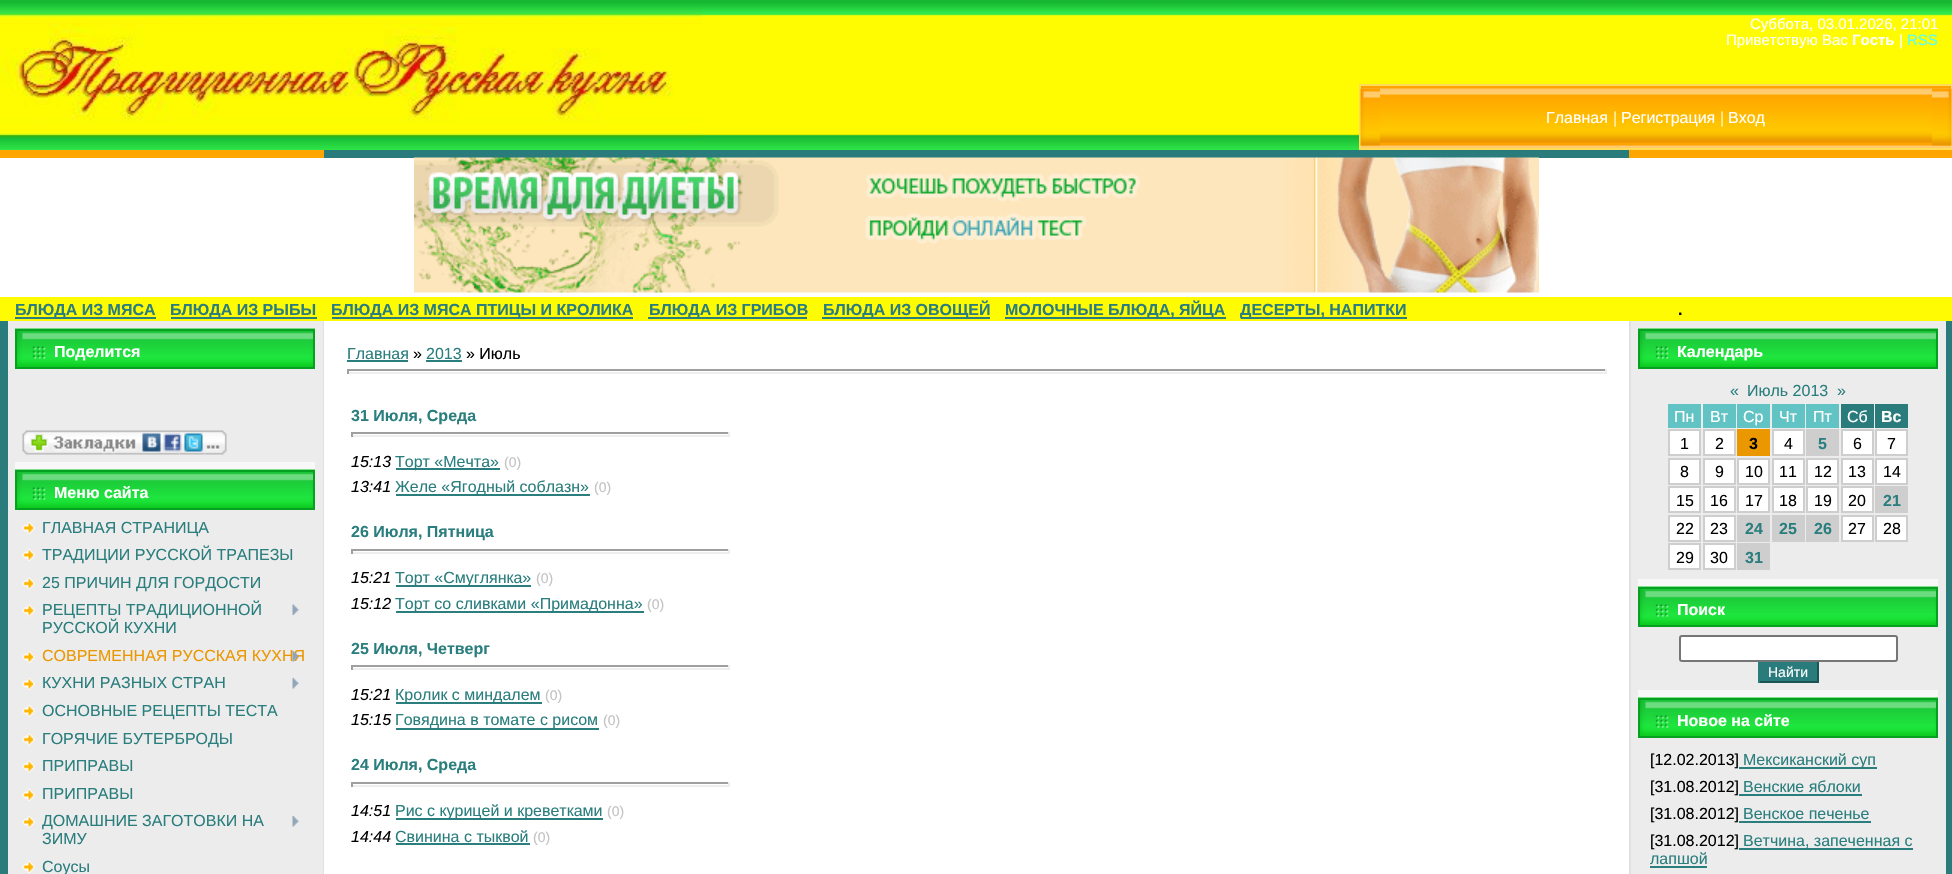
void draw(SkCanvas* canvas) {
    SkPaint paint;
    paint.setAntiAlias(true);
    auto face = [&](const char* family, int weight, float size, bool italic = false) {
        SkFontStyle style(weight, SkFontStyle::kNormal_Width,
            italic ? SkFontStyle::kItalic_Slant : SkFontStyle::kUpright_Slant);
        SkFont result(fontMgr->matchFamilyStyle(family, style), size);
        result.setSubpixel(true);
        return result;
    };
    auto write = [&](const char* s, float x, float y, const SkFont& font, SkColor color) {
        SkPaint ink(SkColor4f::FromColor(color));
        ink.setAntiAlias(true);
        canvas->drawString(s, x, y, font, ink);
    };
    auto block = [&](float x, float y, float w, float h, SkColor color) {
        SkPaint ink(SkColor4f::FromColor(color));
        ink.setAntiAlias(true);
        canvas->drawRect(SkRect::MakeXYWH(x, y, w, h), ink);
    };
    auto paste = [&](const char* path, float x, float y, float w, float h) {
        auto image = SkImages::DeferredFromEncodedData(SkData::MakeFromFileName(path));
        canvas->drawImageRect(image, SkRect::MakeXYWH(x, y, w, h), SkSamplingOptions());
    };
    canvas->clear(SK_ColorWHITE);
    paste("pic1.png", 0, 0, 1952, 150);
    paste("pic2.png", 0, 8, 702, 133);
    auto kFont1 = face("Liberation Sans", 400, 15);
    write("Суббота, 03.01.2026, 21:01", 1750, 29, kFont1, SK_ColorWHITE);
    write("Приветствую Вас", 1726, 45, kFont1, SK_ColorWHITE);
    auto kFont2 = face("Liberation Sans", 700, 15);
    write("Гость", 1852, 45, kFont2, SK_ColorWHITE);
    write("|", 1899, 45, kFont1, SK_ColorWHITE);
    write("RSS", 1907, 45, kFont1, SkColorSetRGB(87, 255, 255));
    paste("pic3.png", 1361, 86, 590, 62);
    paint.setStyle(SkPaint::kStroke_Style);
    paint.setStrokeWidth(2);
    paint.setColor(SkColorSetRGB(255, 220, 88));
    canvas->drawRect(SkRect::MakeXYWH(1360, 85, 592, 64), paint);
    paste("pic4.png", 1360, 88, 20, 58);
    auto kFont3 = face("Liberation Sans", 400, 16);
    write("Главная", 1546, 123, kFont3, SK_ColorWHITE);
    write("|", 1613, 123, kFont3, SkColorSetRGB(255, 242, 182));
    write("Регистрация", 1621, 123, kFont3, SK_ColorWHITE);
    write("|", 1720, 123, kFont3, SkColorSetRGB(255, 242, 182));
    write("Вход", 1728, 123, kFont3, SK_ColorWHITE);
    paste("pic5.png", 1932, 88, 20, 58);
    block(0, 150, 324, 8, SkColorSetRGB(255, 165, 0));
    block(324, 150, 1305, 8, SkColorSetRGB(42, 124, 124));
    block(1629, 150, 323, 8, SkColorSetRGB(255, 165, 0));
    paste("pic6.png", 414, 157, 1125, 136);
    block(0, 297, 1952, 24, SkColorSetRGB(255, 251, 2));
    block(15, 317, 141, 2, SkColorSetRGB(43, 126, 126));
    auto kFont4 = face("Liberation Sans", 700, 16);
    write("БЛЮДА ИЗ МЯСА", 15, 315, kFont4, SkColorSetRGB(43, 126, 126));
    block(171, 317, 146, 2, SkColorSetRGB(43, 126, 126));
    write("БЛЮДА ИЗ РЫБЫ", 170, 315, kFont4, SkColorSetRGB(43, 126, 126));
    block(332, 317, 301, 2, SkColorSetRGB(43, 126, 126));
    write("БЛЮДА ИЗ МЯСА ПТИЦЫ И КРОЛИКА", 331, 315, kFont4, SkColorSetRGB(43, 126, 126));
    block(648, 317, 159, 2, SkColorSetRGB(43, 126, 126));
    write("БЛЮДА ИЗ ГРИБОВ", 649, 315, kFont4, SkColorSetRGB(43, 126, 126));
    block(822, 317, 168, 2, SkColorSetRGB(43, 126, 126));
    write("БЛЮДА ИЗ ОВОЩЕЙ", 823, 315, kFont4, SkColorSetRGB(43, 126, 126));
    block(1005, 317, 221, 2, SkColorSetRGB(43, 126, 126));
    write("МОЛОЧНЫЕ БЛЮДА, ЯЙЦА", 1005, 315, kFont4, SkColorSetRGB(43, 126, 126));
    block(1241, 317, 166, 2, SkColorSetRGB(43, 126, 126));
    write("ДЕСЕРТЫ, НАПИТКИ", 1240, 315, kFont4, SkColorSetRGB(43, 126, 126));
    write(".", 1678, 315, kFont4, SK_ColorBLACK);
    block(8, 321, 315, 553, SkColorSetRGB(236, 236, 236));
    block(323, 321, 1, 553, SkColorSetRGB(224, 224, 224));
    block(0, 321, 8, 553, SkColorSetRGB(42, 124, 124));
    block(15, 462, 300, 8, SkColorSetRGB(248, 248, 248));
    paste("pic7.png", 15, 328, 300, 39);
    paint.setColor(SkColorSetRGB(6, 161, 33));
    canvas->drawRect(SkRect::MakeXYWH(16, 330, 298, 38), paint);
    write("Поделится", 54, 357, kFont4, SK_ColorWHITE);
    paste("pic8.png", 22, 430, 205, 25);
    paste("pic9.png", 15, 469, 300, 39);
    canvas->drawRect(SkRect::MakeXYWH(16, 471, 298, 38), paint);
    write("Меню сайта", 54, 498, kFont4, SK_ColorWHITE);
    paste("pic10.png", 22, 522, 13, 12);
    write("ГЛАВНАЯ СТРАНИЦА", 42, 533, kFont3, SkColorSetRGB(43, 126, 126));
    paste("pic10.png", 22, 549, 13, 12);
    write("ТРАДИЦИИ РУССКОЙ ТРАПЕЗЫ", 42, 560, kFont3, SkColorSetRGB(43, 126, 126));
    paste("pic11.png", 22, 577, 13, 13);
    write("25 ПРИЧИН ДЛЯ ГОРДОСТИ", 42, 588, kFont3, SkColorSetRGB(43, 126, 126));
    paste("pic11.png", 22, 604, 13, 13);
    write("РЕЦЕПТЫ ТРАДИЦИОННОЙ", 42, 615, kFont3, SkColorSetRGB(43, 126, 126));
    paste("pic12.png", 292, 604, 7, 11);
    write("РУССКОЙ КУХНИ", 42, 633, kFont3, SkColorSetRGB(43, 126, 126));
    paste("pic10.png", 22, 651, 13, 12);
    write("СОВРЕМЕННАЯ РУССКАЯ КУХНЯ", 42, 661, kFont3, SkColorSetRGB(235, 151, 0));
    paste("pic13.png", 292, 651, 7, 11);
    paste("pic10.png", 22, 678, 13, 12);
    write("КУХНИ РАЗНЫХ СТРАН", 42, 688, kFont3, SkColorSetRGB(43, 126, 126));
    paste("pic14.png", 292, 678, 7, 11);
    paste("pic10.png", 22, 705, 13, 12);
    write("ОСНОВНЫЕ РЕЦЕПТЫ ТЕСТА", 42, 716, kFont3, SkColorSetRGB(43, 126, 126));
    paste("pic11.png", 22, 733, 13, 13);
    write("ГОРЯЧИЕ БУТЕРБРОДЫ", 42, 744, kFont3, SkColorSetRGB(43, 126, 126));
    paste("pic11.png", 22, 760, 13, 13);
    write("ПРИПРАВЫ", 42, 771, kFont3, SkColorSetRGB(43, 126, 126));
    paste("pic10.png", 22, 789, 13, 12);
    write("ПРИПРАВЫ", 42, 799, kFont3, SkColorSetRGB(43, 126, 126));
    paste("pic10.png", 22, 816, 13, 12);
    write("ДОМАШНИЕ ЗАГОТОВКИ НА", 42, 826, kFont3, SkColorSetRGB(43, 126, 126));
    paste("pic14.png", 292, 816, 7, 11);
    write("ЗИМУ", 42, 844, kFont3, SkColorSetRGB(43, 126, 126));
    paste("pic10.png", 22, 861, 13, 12);
    write("Соусы", 42, 872, kFont3, SkColorSetRGB(43, 126, 126));
    write("Главная", 347, 359, kFont3, SkColorSetRGB(43, 126, 126));
    block(347, 360, 61, 2, SkColorSetRGB(43, 126, 126));
    write("»", 413, 359, kFont3, SK_ColorBLACK);
    write("2013", 426, 359, kFont3, SkColorSetRGB(43, 126, 126));
    block(426, 360, 36, 2, SkColorSetRGB(43, 126, 126));
    write("» Июль", 466, 359, kFont3, SK_ColorBLACK);
    block(347, 369, 1260, 2, SkColorSetRGB(159, 159, 159));
    block(1605, 369, 2, 5, SkColorSetRGB(238, 238, 238));
    block(347, 372, 1260, 2, SkColorSetRGB(238, 238, 238));
    block(347, 369, 2, 5, SkColorSetRGB(159, 159, 159));
    write("31 Июля, Среда", 351, 421, kFont4, SkColorSetRGB(43, 126, 126));
    block(351, 432, 378, 2, SkColorSetRGB(159, 159, 159));
    block(728, 432, 2, 5, SkColorSetRGB(238, 238, 238));
    block(351, 435, 378, 2, SkColorSetRGB(238, 238, 238));
    block(351, 432, 2, 5, SkColorSetRGB(159, 159, 159));
    auto kFont5 = face("Liberation Sans", 400, 16, true);
    write("15:13", 351, 467, kFont5, SK_ColorBLACK);
    block(396, 468, 104, 2, SkColorSetRGB(43, 126, 126));
    write("Торт «Мечта»", 395, 467, kFont3, SkColorSetRGB(43, 126, 126));
    auto kFont6 = face("Liberation Sans", 400, 14);
    write("(0)", 504, 467, kFont6, SkColorSetRGB(195, 195, 195));
    write("13:41", 351, 492, kFont5, SK_ColorBLACK);
    block(396, 494, 194, 2, SkColorSetRGB(43, 126, 126));
    write("Желе «Ягодный соблазн»", 395, 492, kFont3, SkColorSetRGB(43, 126, 126));
    write("(0)", 594, 492, kFont6, SkColorSetRGB(195, 195, 195));
    write("26 Июля, Пятница", 351, 537, kFont4, SkColorSetRGB(43, 126, 126));
    block(351, 549, 378, 2, SkColorSetRGB(159, 159, 159));
    block(728, 549, 2, 5, SkColorSetRGB(238, 238, 238));
    block(351, 552, 378, 2, SkColorSetRGB(238, 238, 238));
    block(351, 549, 2, 5, SkColorSetRGB(159, 159, 159));
    write("15:21", 351, 583, kFont5, SK_ColorBLACK);
    block(396, 585, 135, 2, SkColorSetRGB(43, 126, 126));
    write("Торт «Смуглянка»", 395, 583, kFont3, SkColorSetRGB(43, 126, 126));
    write("(0)", 536, 583, kFont6, SkColorSetRGB(195, 195, 195));
    write("15:12", 351, 609, kFont5, SK_ColorBLACK);
    block(396, 611, 248, 2, SkColorSetRGB(43, 126, 126));
    write("Торт со сливками «Примадонна»", 395, 609, kFont3, SkColorSetRGB(43, 126, 126));
    write("(0)", 647, 609, kFont6, SkColorSetRGB(195, 195, 195));
    write("25 Июля, Четверг", 351, 654, kFont4, SkColorSetRGB(43, 126, 126));
    block(351, 665, 378, 2, SkColorSetRGB(159, 159, 159));
    block(728, 665, 2, 5, SkColorSetRGB(238, 238, 238));
    block(351, 668, 378, 2, SkColorSetRGB(238, 238, 238));
    block(351, 665, 2, 5, SkColorSetRGB(159, 159, 159));
    write("15:21", 351, 700, kFont5, SK_ColorBLACK);
    block(396, 702, 146, 2, SkColorSetRGB(43, 126, 126));
    write("Кролик с миндалем", 395, 700, kFont3, SkColorSetRGB(43, 126, 126));
    write("(0)", 545, 700, kFont6, SkColorSetRGB(195, 195, 195));
    write("15:15", 351, 725, kFont5, SK_ColorBLACK);
    block(396, 728, 203, 2, SkColorSetRGB(43, 126, 126));
    write("Говядина в томате с рисом", 395, 725, kFont3, SkColorSetRGB(43, 126, 126));
    write("(0)", 603, 725, kFont6, SkColorSetRGB(195, 195, 195));
    write("24 Июля, Среда", 351, 770, kFont4, SkColorSetRGB(43, 126, 126));
    block(351, 782, 378, 2, SkColorSetRGB(159, 159, 159));
    block(728, 782, 2, 5, SkColorSetRGB(238, 238, 238));
    block(351, 785, 378, 2, SkColorSetRGB(238, 238, 238));
    block(351, 782, 2, 5, SkColorSetRGB(159, 159, 159));
    write("14:51", 351, 816, kFont5, SK_ColorBLACK);
    block(396, 818, 207, 2, SkColorSetRGB(43, 126, 126));
    write("Рис с курицей и креветками", 395, 816, kFont3, SkColorSetRGB(43, 126, 126));
    write("(0)", 607, 816, kFont6, SkColorSetRGB(195, 195, 195));
    write("14:44", 351, 842, kFont5, SK_ColorBLACK);
    write("Свинина с тыквой", 395, 842, kFont3, SkColorSetRGB(43, 126, 126));
    block(396, 843, 134, 2, SkColorSetRGB(43, 126, 126));
    write("(0)", 533, 842, kFont6, SkColorSetRGB(195, 195, 195));
    block(1631, 321, 315, 553, SkColorSetRGB(236, 236, 236));
    block(1946, 321, 6, 553, SkColorSetRGB(42, 124, 124));
    block(1629, 321, 2, 553, SkColorSetRGB(224, 224, 224));
    block(1638, 579, 300, 8, SkColorSetRGB(248, 248, 248));
    paste("pic7.png", 1638, 328, 300, 39);
    canvas->drawRect(SkRect::MakeXYWH(1639, 330, 298, 38), paint);
    write("Календарь", 1677, 357, kFont4, SK_ColorWHITE);
    write("«", 1730, 396, kFont3, SkColorSetRGB(43, 126, 126));
    write("Июль 2013", 1747, 396, kFont3, SkColorSetRGB(43, 126, 126));
    write("»", 1837, 396, kFont3, SkColorSetRGB(43, 126, 126));
    block(1668, 404, 33, 24, SkColorSetRGB(97, 195, 195));
    write("Пн", 1674, 422, kFont3, SK_ColorWHITE);
    block(1703, 404, 33, 24, SkColorSetRGB(97, 195, 195));
    write("Вт", 1710, 422, kFont3, SK_ColorWHITE);
    block(1737, 404, 33, 24, SkColorSetRGB(97, 195, 195));
    write("Ср", 1743, 422, kFont3, SK_ColorWHITE);
    block(1772, 404, 33, 24, SkColorSetRGB(97, 195, 195));
    write("Чт", 1779, 422, kFont3, SK_ColorWHITE);
    block(1806, 404, 33, 24, SkColorSetRGB(97, 195, 195));
    write("Пт", 1813, 422, kFont3, SK_ColorWHITE);
    block(1841, 404, 33, 24, SkColorSetRGB(42, 124, 124));
    write("Сб", 1847, 422, kFont3, SK_ColorWHITE);
    block(1875, 404, 33, 24, SkColorSetRGB(42, 124, 124));
    write("Вс", 1881, 422, kFont4, SK_ColorWHITE);
    paint.setStyle(SkPaint::kFill_Style);
    paint.setColor(SK_ColorWHITE);
    canvas->drawRect(SkRect::MakeXYWH(1669, 430, 31, 25), paint);
    paint.setStyle(SkPaint::kStroke_Style);
    paint.setColor(SkColorSetRGB(206, 206, 206));
    canvas->drawRect(SkRect::MakeXYWH(1669, 430, 31, 25), paint);
    write("1", 1680, 449, kFont3, SK_ColorBLACK);
    paint.setStyle(SkPaint::kFill_Style);
    paint.setColor(SK_ColorWHITE);
    canvas->drawRect(SkRect::MakeXYWH(1704, 430, 31, 25), paint);
    paint.setStyle(SkPaint::kStroke_Style);
    paint.setColor(SkColorSetRGB(206, 206, 206));
    canvas->drawRect(SkRect::MakeXYWH(1704, 430, 31, 25), paint);
    write("2", 1715, 449, kFont3, SK_ColorBLACK);
    block(1737, 429, 33, 27, SkColorSetRGB(235, 151, 0));
    write("3", 1749, 449, kFont4, SK_ColorBLACK);
    paint.setStyle(SkPaint::kFill_Style);
    paint.setColor(SK_ColorWHITE);
    canvas->drawRect(SkRect::MakeXYWH(1773, 430, 31, 25), paint);
    paint.setStyle(SkPaint::kStroke_Style);
    paint.setColor(SkColorSetRGB(206, 206, 206));
    canvas->drawRect(SkRect::MakeXYWH(1773, 430, 31, 25), paint);
    write("4", 1784, 449, kFont3, SK_ColorBLACK);
    block(1806, 429, 33, 27, SkColorSetRGB(206, 206, 206));
    write("5", 1818, 449, kFont4, SkColorSetRGB(43, 126, 126));
    paint.setStyle(SkPaint::kFill_Style);
    paint.setColor(SK_ColorWHITE);
    canvas->drawRect(SkRect::MakeXYWH(1842, 430, 31, 25), paint);
    paint.setStyle(SkPaint::kStroke_Style);
    paint.setColor(SkColorSetRGB(206, 206, 206));
    canvas->drawRect(SkRect::MakeXYWH(1842, 430, 31, 25), paint);
    write("6", 1853, 449, kFont3, SK_ColorBLACK);
    paint.setStyle(SkPaint::kFill_Style);
    paint.setColor(SK_ColorWHITE);
    canvas->drawRect(SkRect::MakeXYWH(1876, 430, 31, 25), paint);
    paint.setStyle(SkPaint::kStroke_Style);
    paint.setColor(SkColorSetRGB(206, 206, 206));
    canvas->drawRect(SkRect::MakeXYWH(1876, 430, 31, 25), paint);
    write("7", 1887, 449, kFont3, SK_ColorBLACK);
    paint.setStyle(SkPaint::kFill_Style);
    paint.setColor(SK_ColorWHITE);
    canvas->drawRect(SkRect::MakeXYWH(1669, 459, 31, 25), paint);
    paint.setStyle(SkPaint::kStroke_Style);
    paint.setColor(SkColorSetRGB(206, 206, 206));
    canvas->drawRect(SkRect::MakeXYWH(1669, 459, 31, 25), paint);
    write("8", 1680, 477, kFont3, SK_ColorBLACK);
    paint.setStyle(SkPaint::kFill_Style);
    paint.setColor(SK_ColorWHITE);
    canvas->drawRect(SkRect::MakeXYWH(1704, 459, 31, 25), paint);
    paint.setStyle(SkPaint::kStroke_Style);
    paint.setColor(SkColorSetRGB(206, 206, 206));
    canvas->drawRect(SkRect::MakeXYWH(1704, 459, 31, 25), paint);
    write("9", 1715, 477, kFont3, SK_ColorBLACK);
    paint.setStyle(SkPaint::kFill_Style);
    paint.setColor(SK_ColorWHITE);
    canvas->drawRect(SkRect::MakeXYWH(1738, 459, 31, 25), paint);
    paint.setStyle(SkPaint::kStroke_Style);
    paint.setColor(SkColorSetRGB(206, 206, 206));
    canvas->drawRect(SkRect::MakeXYWH(1738, 459, 31, 25), paint);
    write("10", 1745, 477, kFont3, SK_ColorBLACK);
    paint.setStyle(SkPaint::kFill_Style);
    paint.setColor(SK_ColorWHITE);
    canvas->drawRect(SkRect::MakeXYWH(1773, 459, 31, 25), paint);
    paint.setStyle(SkPaint::kStroke_Style);
    paint.setColor(SkColorSetRGB(206, 206, 206));
    canvas->drawRect(SkRect::MakeXYWH(1773, 459, 31, 25), paint);
    write("11", 1779, 477, kFont3, SK_ColorBLACK);
    paint.setStyle(SkPaint::kFill_Style);
    paint.setColor(SK_ColorWHITE);
    canvas->drawRect(SkRect::MakeXYWH(1807, 459, 31, 25), paint);
    paint.setStyle(SkPaint::kStroke_Style);
    paint.setColor(SkColorSetRGB(206, 206, 206));
    canvas->drawRect(SkRect::MakeXYWH(1807, 459, 31, 25), paint);
    write("12", 1814, 477, kFont3, SK_ColorBLACK);
    paint.setStyle(SkPaint::kFill_Style);
    paint.setColor(SK_ColorWHITE);
    canvas->drawRect(SkRect::MakeXYWH(1842, 459, 31, 25), paint);
    paint.setStyle(SkPaint::kStroke_Style);
    paint.setColor(SkColorSetRGB(206, 206, 206));
    canvas->drawRect(SkRect::MakeXYWH(1842, 459, 31, 25), paint);
    write("13", 1848, 477, kFont3, SK_ColorBLACK);
    paint.setStyle(SkPaint::kFill_Style);
    paint.setColor(SK_ColorWHITE);
    canvas->drawRect(SkRect::MakeXYWH(1876, 459, 31, 25), paint);
    paint.setStyle(SkPaint::kStroke_Style);
    paint.setColor(SkColorSetRGB(206, 206, 206));
    canvas->drawRect(SkRect::MakeXYWH(1876, 459, 31, 25), paint);
    write("14", 1883, 477, kFont3, SK_ColorBLACK);
    paint.setStyle(SkPaint::kFill_Style);
    paint.setColor(SK_ColorWHITE);
    canvas->drawRect(SkRect::MakeXYWH(1669, 487, 31, 25), paint);
    paint.setStyle(SkPaint::kStroke_Style);
    paint.setColor(SkColorSetRGB(206, 206, 206));
    canvas->drawRect(SkRect::MakeXYWH(1669, 487, 31, 25), paint);
    write("15", 1676, 506, kFont3, SK_ColorBLACK);
    paint.setStyle(SkPaint::kFill_Style);
    paint.setColor(SK_ColorWHITE);
    canvas->drawRect(SkRect::MakeXYWH(1704, 487, 31, 25), paint);
    paint.setStyle(SkPaint::kStroke_Style);
    paint.setColor(SkColorSetRGB(206, 206, 206));
    canvas->drawRect(SkRect::MakeXYWH(1704, 487, 31, 25), paint);
    write("16", 1710, 506, kFont3, SK_ColorBLACK);
    paint.setStyle(SkPaint::kFill_Style);
    paint.setColor(SK_ColorWHITE);
    canvas->drawRect(SkRect::MakeXYWH(1738, 487, 31, 25), paint);
    paint.setStyle(SkPaint::kStroke_Style);
    paint.setColor(SkColorSetRGB(206, 206, 206));
    canvas->drawRect(SkRect::MakeXYWH(1738, 487, 31, 25), paint);
    write("17", 1745, 506, kFont3, SK_ColorBLACK);
    paint.setStyle(SkPaint::kFill_Style);
    paint.setColor(SK_ColorWHITE);
    canvas->drawRect(SkRect::MakeXYWH(1773, 487, 31, 25), paint);
    paint.setStyle(SkPaint::kStroke_Style);
    paint.setColor(SkColorSetRGB(206, 206, 206));
    canvas->drawRect(SkRect::MakeXYWH(1773, 487, 31, 25), paint);
    write("18", 1779, 506, kFont3, SK_ColorBLACK);
    paint.setStyle(SkPaint::kFill_Style);
    paint.setColor(SK_ColorWHITE);
    canvas->drawRect(SkRect::MakeXYWH(1807, 487, 31, 25), paint);
    paint.setStyle(SkPaint::kStroke_Style);
    paint.setColor(SkColorSetRGB(206, 206, 206));
    canvas->drawRect(SkRect::MakeXYWH(1807, 487, 31, 25), paint);
    write("19", 1814, 506, kFont3, SK_ColorBLACK);
    paint.setStyle(SkPaint::kFill_Style);
    paint.setColor(SK_ColorWHITE);
    canvas->drawRect(SkRect::MakeXYWH(1842, 487, 31, 25), paint);
    paint.setStyle(SkPaint::kStroke_Style);
    paint.setColor(SkColorSetRGB(206, 206, 206));
    canvas->drawRect(SkRect::MakeXYWH(1842, 487, 31, 25), paint);
    write("20", 1848, 506, kFont3, SK_ColorBLACK);
    block(1875, 486, 33, 27, SkColorSetRGB(206, 206, 206));
    write("21", 1883, 506, kFont4, SkColorSetRGB(43, 126, 126));
    paint.setStyle(SkPaint::kFill_Style);
    paint.setColor(SK_ColorWHITE);
    canvas->drawRect(SkRect::MakeXYWH(1669, 516, 31, 25), paint);
    paint.setStyle(SkPaint::kStroke_Style);
    paint.setColor(SkColorSetRGB(206, 206, 206));
    canvas->drawRect(SkRect::MakeXYWH(1669, 516, 31, 25), paint);
    write("22", 1676, 534, kFont3, SK_ColorBLACK);
    paint.setStyle(SkPaint::kFill_Style);
    paint.setColor(SK_ColorWHITE);
    canvas->drawRect(SkRect::MakeXYWH(1704, 516, 31, 25), paint);
    paint.setStyle(SkPaint::kStroke_Style);
    paint.setColor(SkColorSetRGB(206, 206, 206));
    canvas->drawRect(SkRect::MakeXYWH(1704, 516, 31, 25), paint);
    write("23", 1710, 534, kFont3, SK_ColorBLACK);
    block(1737, 515, 33, 27, SkColorSetRGB(206, 206, 206));
    write("24", 1745, 534, kFont4, SkColorSetRGB(43, 126, 126));
    block(1772, 515, 33, 27, SkColorSetRGB(206, 206, 206));
    write("25", 1779, 534, kFont4, SkColorSetRGB(43, 126, 126));
    block(1806, 515, 33, 27, SkColorSetRGB(206, 206, 206));
    write("26", 1814, 534, kFont4, SkColorSetRGB(43, 126, 126));
    paint.setStyle(SkPaint::kFill_Style);
    paint.setColor(SK_ColorWHITE);
    canvas->drawRect(SkRect::MakeXYWH(1842, 516, 31, 25), paint);
    paint.setStyle(SkPaint::kStroke_Style);
    paint.setColor(SkColorSetRGB(206, 206, 206));
    canvas->drawRect(SkRect::MakeXYWH(1842, 516, 31, 25), paint);
    write("27", 1848, 534, kFont3, SK_ColorBLACK);
    paint.setStyle(SkPaint::kFill_Style);
    paint.setColor(SK_ColorWHITE);
    canvas->drawRect(SkRect::MakeXYWH(1876, 516, 31, 25), paint);
    paint.setStyle(SkPaint::kStroke_Style);
    paint.setColor(SkColorSetRGB(206, 206, 206));
    canvas->drawRect(SkRect::MakeXYWH(1876, 516, 31, 25), paint);
    write("28", 1883, 534, kFont3, SK_ColorBLACK);
    paint.setStyle(SkPaint::kFill_Style);
    paint.setColor(SK_ColorWHITE);
    canvas->drawRect(SkRect::MakeXYWH(1669, 544, 31, 25), paint);
    paint.setStyle(SkPaint::kStroke_Style);
    paint.setColor(SkColorSetRGB(206, 206, 206));
    canvas->drawRect(SkRect::MakeXYWH(1669, 544, 31, 25), paint);
    write("29", 1676, 563, kFont3, SK_ColorBLACK);
    paint.setStyle(SkPaint::kFill_Style);
    paint.setColor(SK_ColorWHITE);
    canvas->drawRect(SkRect::MakeXYWH(1704, 544, 31, 25), paint);
    paint.setStyle(SkPaint::kStroke_Style);
    paint.setColor(SkColorSetRGB(206, 206, 206));
    canvas->drawRect(SkRect::MakeXYWH(1704, 544, 31, 25), paint);
    write("30", 1710, 563, kFont3, SK_ColorBLACK);
    block(1737, 543, 33, 27, SkColorSetRGB(206, 206, 206));
    write("31", 1745, 563, kFont4, SkColorSetRGB(43, 126, 126));
    block(1638, 690, 300, 8, SkColorSetRGB(248, 248, 248));
    paste("pic9.png", 1638, 586, 300, 39);
    paint.setColor(SkColorSetRGB(6, 161, 33));
    canvas->drawRect(SkRect::MakeXYWH(1639, 588, 298, 38), paint);
    write("Поиск", 1677, 615, kFont4, SK_ColorWHITE);
    paint.setStyle(SkPaint::kFill_Style);
    paint.setColor(SK_ColorWHITE);
    canvas->drawRoundRect(SkRect::MakeXYWH(1680, 636, 217, 25), 2, 2, paint);
    paint.setStyle(SkPaint::kStroke_Style);
    paint.setColor(SkColorSetRGB(118, 118, 118));
    canvas->drawRoundRect(SkRect::MakeXYWH(1680, 636, 217, 25), 2, 2, paint);
    block(1760, 662, 57, 19, SkColorSetRGB(42, 124, 124));
    block(1817, 662, 2, 21, SkColorSetRGB(28, 83, 83));
    block(1758, 681, 60, 2, SkColorSetRGB(28, 83, 83));
    block(1758, 662, 2, 21, SkColorSetRGB(42, 124, 124));
    write("Найти", 1768, 677, kFont6, SK_ColorWHITE);
    paste("pic9.png", 1638, 697, 300, 39);
    paint.setColor(SkColorSetRGB(6, 161, 33));
    canvas->drawRect(SkRect::MakeXYWH(1639, 699, 298, 38), paint);
    write("Новое на сйте", 1677, 726, kFont4, SK_ColorWHITE);
    write("[12.02.2013]", 1650, 765, kFont3, SK_ColorBLACK);
    block(1739, 767, 138, 2, SkColorSetRGB(43, 126, 126));
    write("Мексиканский суп", 1743, 765, kFont3, SkColorSetRGB(43, 126, 126));
    write("[31.08.2012]", 1650, 792, kFont3, SK_ColorBLACK);
    write("Венские яблоки", 1743, 792, kFont3, SkColorSetRGB(43, 126, 126));
    block(1739, 794, 123, 2, SkColorSetRGB(43, 126, 126));
    write("[31.08.2012]", 1650, 819, kFont3, SK_ColorBLACK);
    write("Венское печенье", 1743, 819, kFont3, SkColorSetRGB(43, 126, 126));
    block(1739, 821, 132, 2, SkColorSetRGB(43, 126, 126));
    write("[31.08.2012]", 1650, 846, kFont3, SK_ColorBLACK);
    block(1739, 848, 174, 2, SkColorSetRGB(43, 126, 126));
    write("Ветчина, запеченная с", 1743, 846, kFont3, SkColorSetRGB(43, 126, 126));
    write("лапшой", 1650, 864, kFont3, SkColorSetRGB(43, 126, 126));
    block(1650, 866, 57, 2, SkColorSetRGB(43, 126, 126));
}
